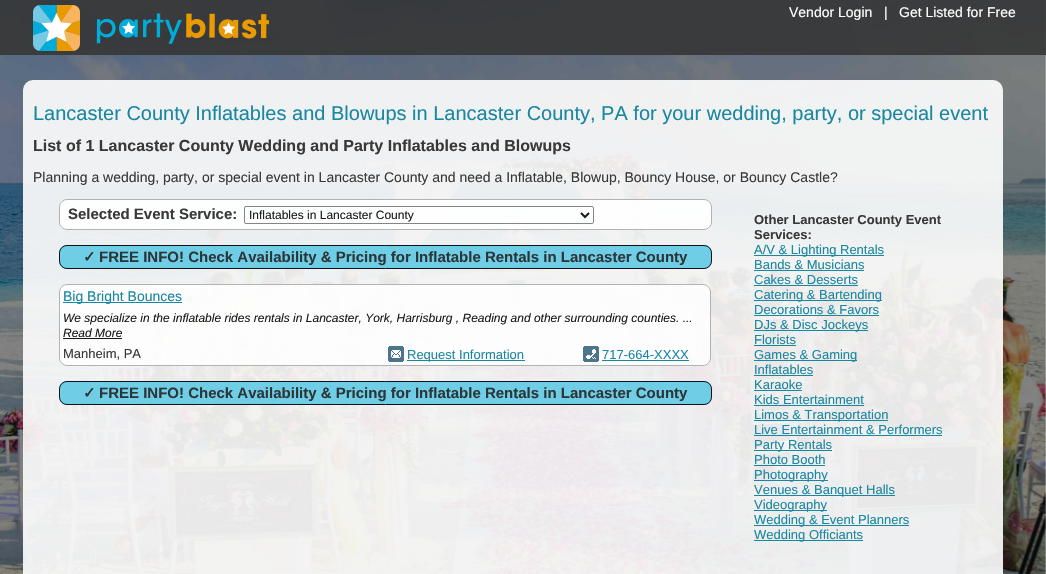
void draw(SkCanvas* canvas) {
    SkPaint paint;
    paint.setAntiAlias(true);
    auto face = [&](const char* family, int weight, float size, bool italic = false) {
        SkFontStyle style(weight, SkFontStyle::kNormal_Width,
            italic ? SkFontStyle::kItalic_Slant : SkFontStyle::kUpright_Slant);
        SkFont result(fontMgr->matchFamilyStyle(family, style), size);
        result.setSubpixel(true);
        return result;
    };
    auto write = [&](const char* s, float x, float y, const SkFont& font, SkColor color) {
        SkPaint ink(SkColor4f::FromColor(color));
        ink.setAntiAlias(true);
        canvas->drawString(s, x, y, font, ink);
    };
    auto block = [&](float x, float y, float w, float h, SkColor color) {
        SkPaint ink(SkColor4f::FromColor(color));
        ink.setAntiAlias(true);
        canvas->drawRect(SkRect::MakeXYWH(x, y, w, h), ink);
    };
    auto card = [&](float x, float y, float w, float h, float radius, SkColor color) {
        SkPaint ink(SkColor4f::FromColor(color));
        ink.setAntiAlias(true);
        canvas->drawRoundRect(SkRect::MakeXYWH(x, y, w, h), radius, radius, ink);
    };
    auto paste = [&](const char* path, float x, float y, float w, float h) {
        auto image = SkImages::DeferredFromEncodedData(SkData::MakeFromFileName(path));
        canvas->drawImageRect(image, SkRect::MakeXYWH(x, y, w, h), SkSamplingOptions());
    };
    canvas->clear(SK_ColorWHITE);
    paste("pic1.png", 0, 0, 1046, 574);
    block(0, 0, 1046, 55, SkColorSetARGB(230, 53, 53, 53));
    paste("pic2.png", 33, 5, 236, 46);
    auto kFont1 = face("Liberation Sans", 400, 14);
    write("Vendor Login", 789, 17, kFont1, SK_ColorWHITE);
    write("|", 884, 17, kFont1, SK_ColorWHITE);
    write("Get Listed for Free", 899, 17, kFont1, SK_ColorWHITE);
    card(23, 80, 980, 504, 10, SkColorSetARGB(230, 255, 255, 255));
    auto kFont2 = face("Liberation Sans", 400, 20);
    write("Lancaster County Inflatables and Blowups in Lancaster County, PA for your wedding, party, or special event", 33, 120, kFont2, SkColorSetRGB(25, 135, 160));
    auto kFont3 = face("Liberation Sans", 700, 16);
    write("List of 1 Lancaster County Wedding and Party Inflatables and Blowups", 33, 151, kFont3, SkColorSetRGB(57, 57, 57));
    write("Planning a wedding, party, or special event in Lancaster County and need a Inflatable, Blowup, Bouncy House, or Bouncy Castle?", 33, 182, kFont1, SkColorSetRGB(57, 57, 57));
    card(59, 199, 653, 31, 8, SkColorSetARGB(230, 255, 255, 255));
    paint.setStyle(SkPaint::kStroke_Style);
    paint.setStrokeWidth(1);
    paint.setColor(SkColorSetARGB(230, 170, 170, 170));
    canvas->drawRoundRect(SkRect::MakeXYWH(59.5f, 199.5f, 652, 30), 7.5f, 7.5f, paint);
    auto kFont4 = face("Liberation Sans", 700, 15);
    write("Selected Event Service:", 68, 219, kFont4, SkColorSetRGB(57, 57, 57));
    paint.setColor(SkColorSetRGB(132, 132, 132));
    canvas->drawRoundRect(SkRect::MakeXYWH(244.5f, 206.5f, 349, 17), 1.5f, 1.5f, paint);
    paint.setStrokeWidth(2);
    paint.setColor(SkColorSetRGB(26, 26, 26));
    canvas->drawPath(SkPathBuilder().moveTo(581, 213).lineTo(585, 217).lineTo(589, 213).detach(), paint);
    auto kFont5 = face("Liberation Sans", 400, 12);
    write("Inflatables in Lancaster County", 249, 219, kFont5, SkColorSetRGB(26, 26, 26));
    card(59, 245, 653, 24, 8, SkColorSetARGB(230, 96, 202, 228));
    paint.setStrokeWidth(1);
    paint.setColor(SkColorSetARGB(230, 0, 0, 0));
    canvas->drawRoundRect(SkRect::MakeXYWH(59.5f, 245.5f, 652, 23), 7.5f, 7.5f, paint);
    auto kFont6 = face("DejaVu Sans", 700, 15);
    write("✓", 83, 262, kFont6, SkColorSetRGB(44, 54, 56));
    write("FREE INFO! Check Availability & Pricing for Inflatable Rentals in Lancaster County", 99, 262, kFont4, SkColorSetRGB(44, 54, 56));
    card(59, 284, 652, 82, 8, SkColorSetARGB(230, 254, 254, 254));
    paint.setColor(SkColorSetARGB(230, 170, 170, 170));
    canvas->drawRoundRect(SkRect::MakeXYWH(59.5f, 284.5f, 651, 81), 7.5f, 7.5f, paint);
    block(63, 302, 119, 1, SkColorSetRGB(26, 136, 161));
    write("Big Bright Bounces", 63, 301, kFont1, SkColorSetRGB(25, 135, 160));
    auto kFont7 = face("Liberation Sans", 400, 12, true);
    write("We specialize in the inflatable rides rentals in Lancaster, York, Harrisburg , Reading and other surrounding counties. ...", 63, 322, kFont7, SkColorSetRGB(26, 26, 26));
    write("Read More", 63, 337, kFont7, SkColorSetRGB(26, 26, 26));
    block(63, 338, 59, 1, SkColorSetRGB(25, 25, 25));
    auto kFont8 = face("Liberation Sans", 400, 13);
    write("Manheim, PA", 63, 358, kFont8, SkColorSetRGB(57, 57, 57));
    paste("pic3.png", 388, 346, 16, 16);
    block(407, 360, 118, 1, SkColorSetRGB(26, 136, 161));
    write("Request Information", 407, 359, kFont8, SkColorSetRGB(25, 135, 160));
    paste("pic4.png", 583, 346, 16, 16);
    write("717-664-XXXX", 602, 359, kFont8, SkColorSetRGB(25, 135, 160));
    block(602, 360, 87, 1, SkColorSetRGB(26, 136, 161));
    card(59, 381, 653, 24, 8, SkColorSetARGB(230, 96, 202, 228));
    paint.setColor(SkColorSetARGB(230, 0, 0, 0));
    canvas->drawRoundRect(SkRect::MakeXYWH(59.5f, 381.5f, 652, 23), 7.5f, 7.5f, paint);
    write("✓", 83, 398, kFont6, SkColorSetRGB(44, 54, 56));
    write("FREE INFO! Check Availability & Pricing for Inflatable Rentals in Lancaster County", 99, 398, kFont4, SkColorSetRGB(44, 54, 56));
    auto kFont9 = face("Liberation Sans", 700, 13);
    write("Other Lancaster County Event", 754, 224, kFont9, SkColorSetRGB(57, 57, 57));
    write("Services:", 754, 239, kFont9, SkColorSetRGB(57, 57, 57));
    block(754, 255, 130, 1, SkColorSetRGB(25, 135, 160));
    write("A/V & Lighting Rentals", 754, 254, kFont8, SkColorSetRGB(25, 135, 160));
    write("Bands & Musicians", 754, 269, kFont8, SkColorSetRGB(25, 135, 160));
    block(754, 270, 110, 1, SkColorSetARGB(230, 1, 123, 151));
    write("Cakes & Desserts", 754, 284, kFont8, SkColorSetRGB(25, 135, 160));
    block(754, 285, 104, 1, SkColorSetARGB(230, 1, 123, 151));
    block(754, 300, 128, 1, SkColorSetARGB(230, 1, 123, 151));
    write("Catering & Bartending", 754, 299, kFont8, SkColorSetRGB(25, 135, 160));
    write("Decorations & Favors", 754, 314, kFont8, SkColorSetRGB(25, 135, 160));
    block(754, 315, 125, 1, SkColorSetARGB(230, 1, 123, 151));
    block(754, 330, 114, 1, SkColorSetARGB(230, 1, 123, 151));
    write("DJs & Disc Jockeys", 754, 329, kFont8, SkColorSetRGB(25, 135, 160));
    write("Florists", 754, 344, kFont8, SkColorSetRGB(25, 135, 160));
    block(754, 345, 42, 1, SkColorSetARGB(230, 1, 123, 151));
    block(754, 360, 103, 1, SkColorSetARGB(230, 1, 123, 151));
    write("Games & Gaming", 754, 359, kFont8, SkColorSetRGB(25, 135, 160));
    write("Inflatables", 754, 374, kFont8, SkColorSetRGB(25, 135, 160));
    block(754, 375, 59, 1, SkColorSetARGB(230, 1, 123, 151));
    write("Karaoke", 754, 389, kFont8, SkColorSetRGB(25, 135, 160));
    block(754, 390, 48, 1, SkColorSetARGB(230, 1, 123, 151));
    write("Kids Entertainment", 754, 404, kFont8, SkColorSetRGB(25, 135, 160));
    block(754, 405, 110, 1, SkColorSetARGB(230, 1, 123, 151));
    block(754, 420, 134, 1, SkColorSetARGB(230, 1, 123, 151));
    write("Limos & Transportation", 754, 419, kFont8, SkColorSetRGB(25, 135, 160));
    write("Live Entertainment & Performers", 754, 434, kFont8, SkColorSetRGB(25, 135, 160));
    block(754, 435, 188, 1, SkColorSetARGB(230, 1, 123, 151));
    block(754, 450, 78, 1, SkColorSetARGB(230, 1, 123, 151));
    write("Party Rentals", 754, 449, kFont8, SkColorSetRGB(25, 135, 160));
    write("Photo Booth", 754, 464, kFont8, SkColorSetRGB(25, 135, 160));
    block(754, 465, 71, 1, SkColorSetARGB(230, 1, 123, 151));
    block(754, 480, 74, 1, SkColorSetARGB(230, 1, 123, 151));
    write("Photography", 754, 479, kFont8, SkColorSetRGB(25, 135, 160));
    block(754, 495, 141, 1, SkColorSetARGB(230, 1, 123, 151));
    write("Venues & Banquet Halls", 754, 494, kFont8, SkColorSetRGB(25, 135, 160));
    block(754, 510, 73, 1, SkColorSetARGB(230, 1, 123, 151));
    write("Videography", 754, 509, kFont8, SkColorSetRGB(25, 135, 160));
    block(754, 525, 155, 1, SkColorSetARGB(230, 1, 123, 151));
    write("Wedding & Event Planners", 754, 524, kFont8, SkColorSetRGB(25, 135, 160));
    block(754, 540, 109, 1, SkColorSetARGB(230, 1, 123, 151));
    write("Wedding Officiants", 754, 539, kFont8, SkColorSetRGB(25, 135, 160));
}
